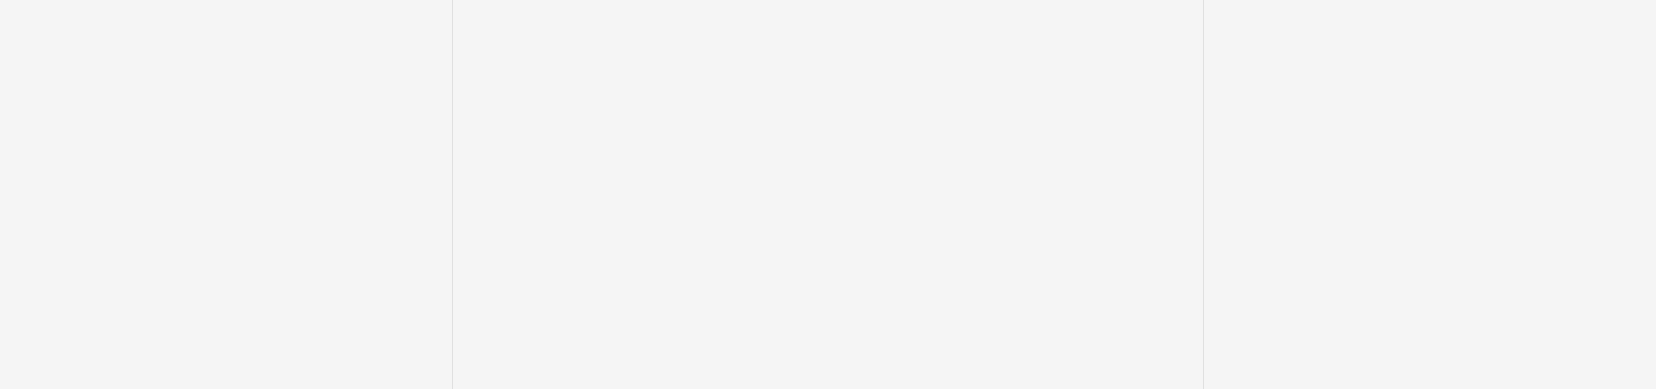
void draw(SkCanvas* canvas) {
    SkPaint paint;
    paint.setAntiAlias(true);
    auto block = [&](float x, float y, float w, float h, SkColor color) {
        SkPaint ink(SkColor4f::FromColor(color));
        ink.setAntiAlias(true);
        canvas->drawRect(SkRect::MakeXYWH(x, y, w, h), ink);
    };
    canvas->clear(SkColorSetRGB(245, 245, 245));
    block(1203, 0, 1, 389, SkColorSetRGB(224, 224, 224));
    block(452, 0, 1, 389, SkColorSetRGB(224, 224, 224));
}
